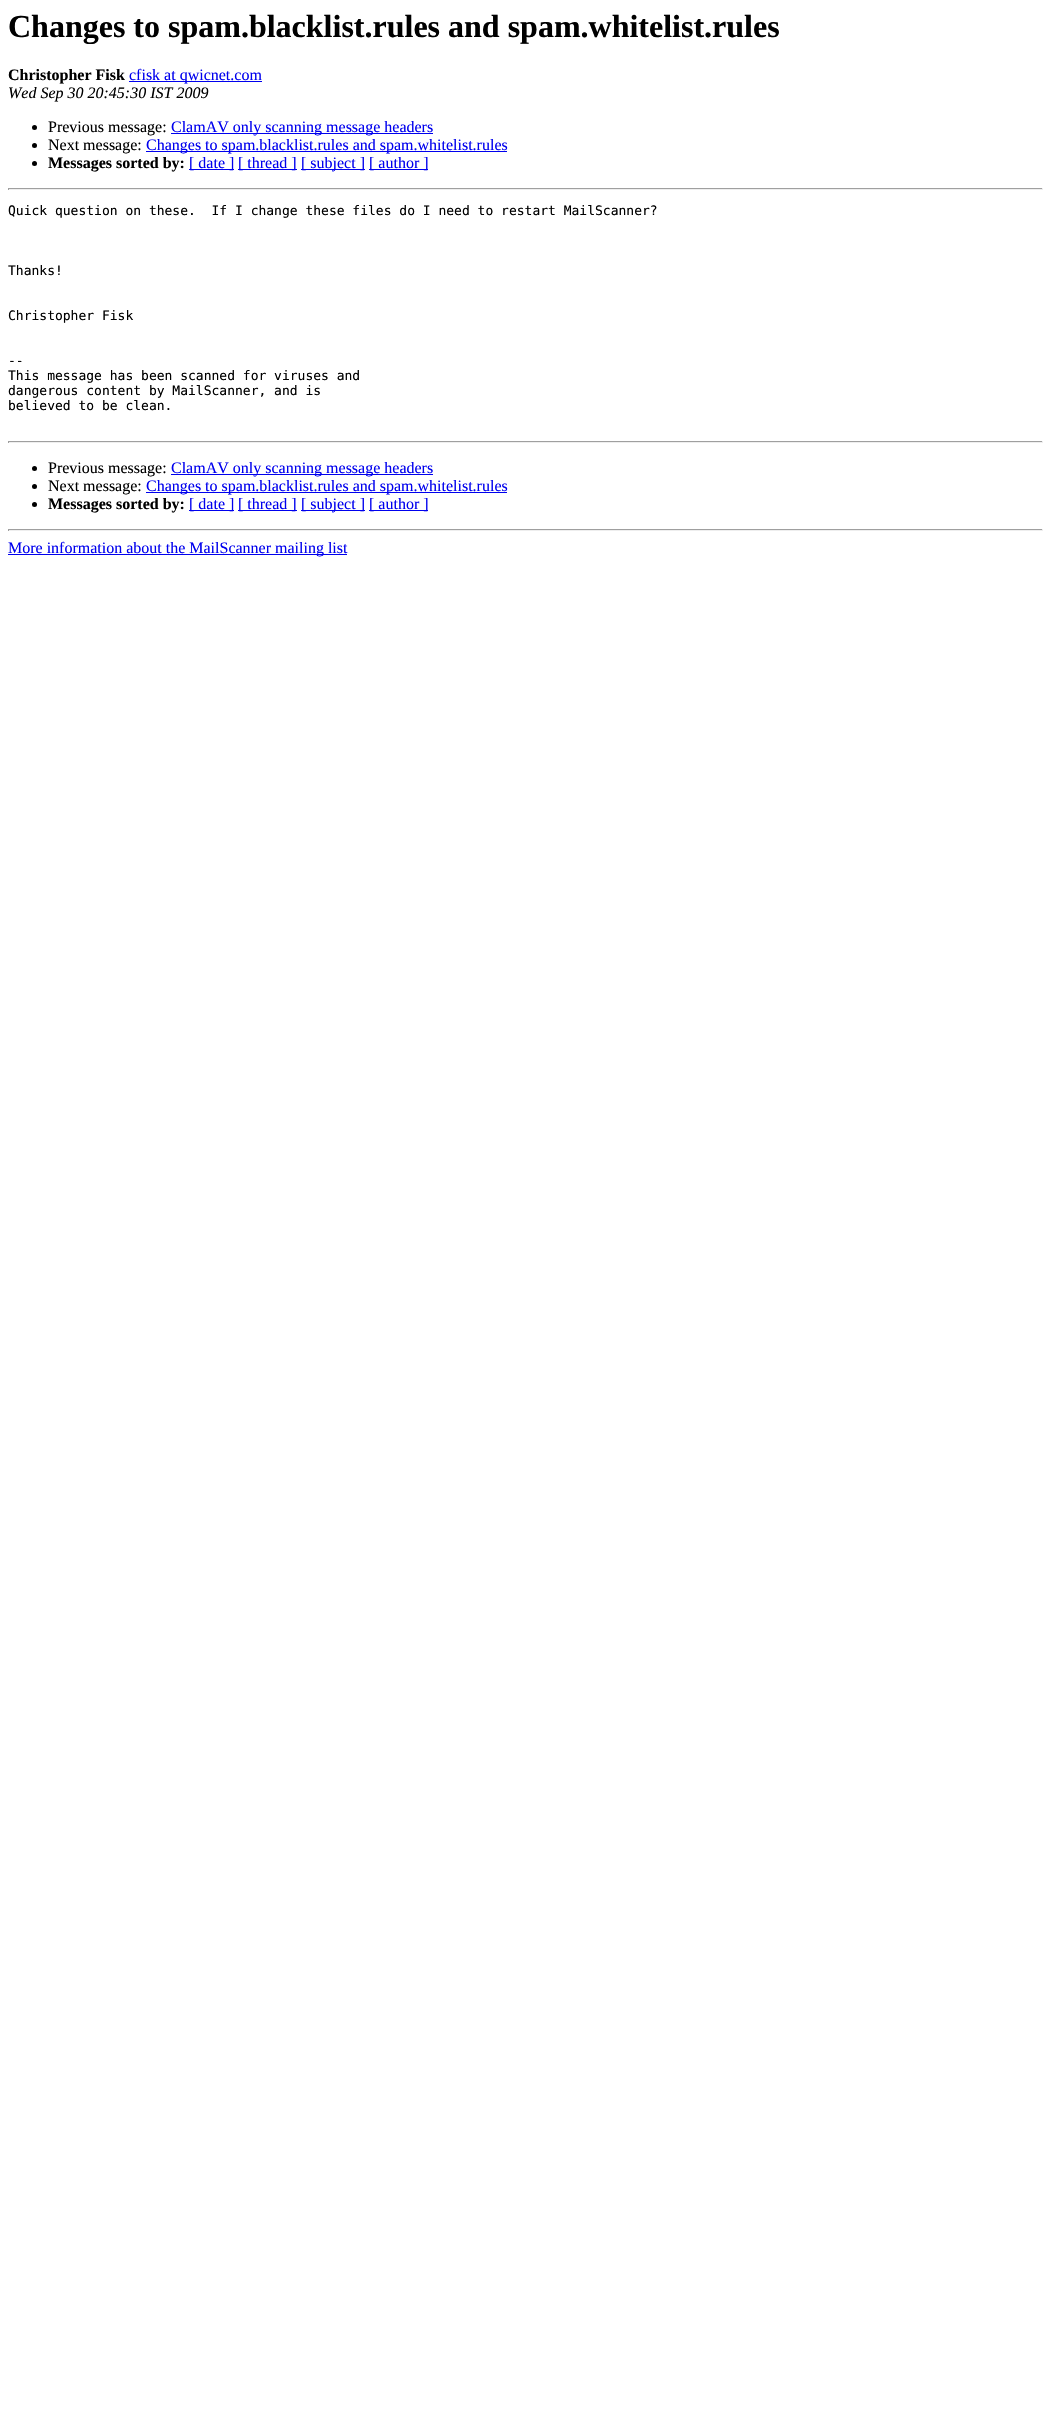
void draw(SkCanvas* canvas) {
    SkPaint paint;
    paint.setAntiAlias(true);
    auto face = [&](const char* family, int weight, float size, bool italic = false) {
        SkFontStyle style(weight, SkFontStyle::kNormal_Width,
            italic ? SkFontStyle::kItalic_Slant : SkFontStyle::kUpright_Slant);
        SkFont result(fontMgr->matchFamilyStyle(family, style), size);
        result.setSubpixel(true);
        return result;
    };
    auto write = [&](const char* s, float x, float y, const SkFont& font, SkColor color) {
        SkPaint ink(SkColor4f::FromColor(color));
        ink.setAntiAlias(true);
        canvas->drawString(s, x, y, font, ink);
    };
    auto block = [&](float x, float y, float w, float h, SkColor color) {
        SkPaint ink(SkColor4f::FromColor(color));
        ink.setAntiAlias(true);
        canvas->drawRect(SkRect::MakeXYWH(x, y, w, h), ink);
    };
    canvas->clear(SK_ColorWHITE);
    auto kFont1 = face("Liberation Serif", 700, 32);
    write("Changes to spam.blacklist.rules and spam.whitelist.rules", 8, 37, kFont1, SK_ColorBLACK);
    auto kFont2 = face("Liberation Serif", 700, 16);
    write("Christopher Fisk", 8, 80, kFont2, SK_ColorBLACK);
    block(129, 81, 133, 1, SkColorSetRGB(0, 0, 238));
    auto kFont3 = face("Liberation Serif", 400, 16);
    write("cfisk at qwicnet.com", 129, 80, kFont3, SkColorSetRGB(0, 0, 238));
    auto kFont4 = face("Liberation Serif", 400, 16, true);
    write("Wed Sep 30 20:45:30 IST 2009", 8, 98, kFont4, SK_ColorBLACK);
    paint.setColor(SK_ColorBLACK);
    canvas->drawCircle(34.5f, 127.5f, 2.5f, paint);
    write("Previous message:", 48, 132, kFont3, SK_ColorBLACK);
    block(171, 133, 262, 1, SkColorSetRGB(0, 0, 238));
    write("ClamAV only scanning message headers", 171, 132, kFont3, SkColorSetRGB(0, 0, 238));
    canvas->drawCircle(34.5f, 145.5f, 2.5f, paint);
    write("Next message:", 48, 150, kFont3, SK_ColorBLACK);
    block(146, 151, 361, 1, SkColorSetRGB(0, 0, 238));
    write("Changes to spam.blacklist.rules and spam.whitelist.rules", 146, 150, kFont3, SkColorSetRGB(0, 0, 238));
    canvas->drawCircle(34.5f, 163.5f, 2.5f, paint);
    write("Messages sorted by:", 48, 168, kFont2, SK_ColorBLACK);
    block(189, 169, 45, 1, SkColorSetRGB(0, 0, 238));
    write("[ date ]", 189, 168, kFont3, SkColorSetRGB(0, 0, 238));
    block(238, 169, 59, 1, SkColorSetRGB(0, 0, 238));
    write("[ thread ]", 238, 168, kFont3, SkColorSetRGB(0, 0, 238));
    block(301, 169, 64, 1, SkColorSetRGB(0, 0, 238));
    write("[ subject ]", 301, 168, kFont3, SkColorSetRGB(0, 0, 238));
    block(369, 169, 59, 1, SkColorSetRGB(0, 0, 238));
    write("[ author ]", 369, 168, kFont3, SkColorSetRGB(0, 0, 238));
    block(8, 188, 1035, 1, SkColorSetRGB(159, 159, 159));
    block(1042, 188, 1, 2, SkColorSetRGB(238, 238, 238));
    block(8, 189, 1035, 1, SkColorSetRGB(238, 238, 238));
    block(8, 188, 1, 2, SkColorSetRGB(159, 159, 159));
    auto kFont5 = face("DejaVu Sans Mono", 400, 13);
    write("Quick question on these.  If I change these files do I need to restart MailScanner?", 8, 215, kFont5, SK_ColorBLACK);
    write("Thanks!", 8, 275, kFont5, SK_ColorBLACK);
    write("Christopher Fisk", 8, 320, kFont5, SK_ColorBLACK);
    write("--", 8, 365, kFont5, SK_ColorBLACK);
    write("This message has been scanned for viruses and", 8, 380, kFont5, SK_ColorBLACK);
    write("dangerous content by MailScanner, and is", 8, 395, kFont5, SK_ColorBLACK);
    write("believed to be clean.", 8, 410, kFont5, SK_ColorBLACK);
    block(8, 441, 1035, 1, SkColorSetRGB(159, 159, 159));
    block(1042, 441, 1, 2, SkColorSetRGB(238, 238, 238));
    block(8, 442, 1035, 1, SkColorSetRGB(238, 238, 238));
    block(8, 441, 1, 2, SkColorSetRGB(159, 159, 159));
    canvas->drawCircle(34.5f, 468.5f, 2.5f, paint);
    write("Previous message:", 48, 473, kFont3, SK_ColorBLACK);
    block(171, 474, 262, 1, SkColorSetRGB(0, 0, 238));
    write("ClamAV only scanning message headers", 171, 473, kFont3, SkColorSetRGB(0, 0, 238));
    canvas->drawCircle(34.5f, 486.5f, 2.5f, paint);
    write("Next message:", 48, 491, kFont3, SK_ColorBLACK);
    block(146, 492, 361, 1, SkColorSetRGB(0, 0, 238));
    write("Changes to spam.blacklist.rules and spam.whitelist.rules", 146, 491, kFont3, SkColorSetRGB(0, 0, 238));
    canvas->drawCircle(34.5f, 504.5f, 2.5f, paint);
    write("Messages sorted by:", 48, 509, kFont2, SK_ColorBLACK);
    block(189, 510, 45, 1, SkColorSetRGB(0, 0, 238));
    write("[ date ]", 189, 509, kFont3, SkColorSetRGB(0, 0, 238));
    block(238, 510, 59, 1, SkColorSetRGB(0, 0, 238));
    write("[ thread ]", 238, 509, kFont3, SkColorSetRGB(0, 0, 238));
    block(301, 510, 64, 1, SkColorSetRGB(0, 0, 238));
    write("[ subject ]", 301, 509, kFont3, SkColorSetRGB(0, 0, 238));
    block(369, 510, 59, 1, SkColorSetRGB(0, 0, 238));
    write("[ author ]", 369, 509, kFont3, SkColorSetRGB(0, 0, 238));
    block(8, 529, 1035, 1, SkColorSetRGB(159, 159, 159));
    block(1042, 529, 1, 2, SkColorSetRGB(238, 238, 238));
    block(8, 530, 1035, 1, SkColorSetRGB(238, 238, 238));
    block(8, 529, 1, 2, SkColorSetRGB(159, 159, 159));
    block(8, 554, 339, 1, SkColorSetRGB(0, 0, 238));
    write("More information about the MailScanner mailing list", 8, 553, kFont3, SkColorSetRGB(0, 0, 238));
}
